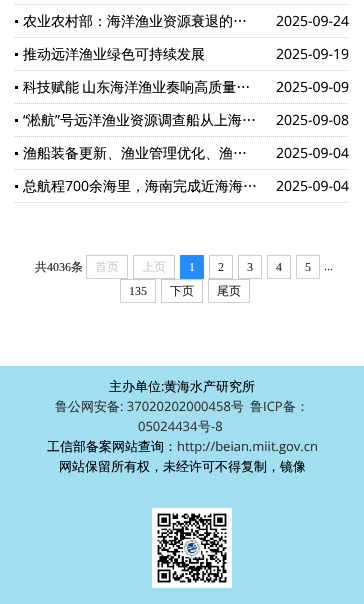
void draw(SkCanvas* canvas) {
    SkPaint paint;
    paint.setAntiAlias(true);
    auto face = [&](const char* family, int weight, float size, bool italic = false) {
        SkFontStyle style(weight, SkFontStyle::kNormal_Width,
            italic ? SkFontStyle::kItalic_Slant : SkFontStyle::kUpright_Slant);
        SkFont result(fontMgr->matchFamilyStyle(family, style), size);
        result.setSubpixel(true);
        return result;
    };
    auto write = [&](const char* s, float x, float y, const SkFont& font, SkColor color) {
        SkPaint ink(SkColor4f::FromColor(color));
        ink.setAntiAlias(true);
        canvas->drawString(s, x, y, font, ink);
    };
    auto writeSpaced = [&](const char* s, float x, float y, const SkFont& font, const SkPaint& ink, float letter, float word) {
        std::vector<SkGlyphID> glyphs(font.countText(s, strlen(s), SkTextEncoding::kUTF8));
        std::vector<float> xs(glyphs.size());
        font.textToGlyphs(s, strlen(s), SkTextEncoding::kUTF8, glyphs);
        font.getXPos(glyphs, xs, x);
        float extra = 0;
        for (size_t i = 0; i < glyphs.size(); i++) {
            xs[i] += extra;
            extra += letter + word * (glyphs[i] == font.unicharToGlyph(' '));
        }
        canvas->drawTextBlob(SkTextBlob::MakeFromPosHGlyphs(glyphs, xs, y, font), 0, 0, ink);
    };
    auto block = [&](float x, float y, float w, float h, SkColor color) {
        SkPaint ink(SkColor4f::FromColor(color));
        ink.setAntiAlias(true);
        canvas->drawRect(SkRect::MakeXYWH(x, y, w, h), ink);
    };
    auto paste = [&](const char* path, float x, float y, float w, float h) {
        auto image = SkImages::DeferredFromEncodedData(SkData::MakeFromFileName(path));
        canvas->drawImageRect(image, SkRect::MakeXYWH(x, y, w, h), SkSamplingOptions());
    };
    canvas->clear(SkColorSetRGB(161, 222, 240));
    block(0, 0, 364, 366, SK_ColorWHITE);
    paint.setStyle(SkPaint::kStroke_Style);
    paint.setStrokeWidth(1);
    paint.setColor(SkColorSetRGB(204, 204, 204));
    paint.setPathEffect(SkDashPathEffect::Make({{1, 1}}, 0));
    canvas->drawPath(SkPathBuilder().moveTo(15, 4.5f).lineTo(349, 4.5f).detach(), paint);
    paint.setPathEffect(nullptr);
    paint.setPathEffect(SkDashPathEffect::Make({{1, 1}}, 0));
    canvas->drawPath(SkPathBuilder().moveTo(15, 37.5f).lineTo(349, 37.5f).detach(), paint);
    paint.setPathEffect(nullptr);
    block(15, 20, 3, 3, SK_ColorBLACK);
    auto kFont1 = face("WenQuanYi Zen Hei", 500, 14);
    write("农业农村部：海洋渔业资源衰退的…", 23, 26, kFont1, SK_ColorBLACK);
    auto kFont2 = face("Open Sans", 400, 14);
    write("2025-09-24", 276, 26, kFont2, SK_ColorBLACK);
    paint.setPathEffect(SkDashPathEffect::Make({{1, 1}}, 0));
    canvas->drawPath(SkPathBuilder().moveTo(15, 70.5f).lineTo(349, 70.5f).detach(), paint);
    paint.setPathEffect(nullptr);
    block(15, 53, 3, 3, SK_ColorBLACK);
    write("推动远洋渔业绿色可持续发展", 23, 59, kFont1, SK_ColorBLACK);
    write("2025-09-19", 276, 59, kFont2, SK_ColorBLACK);
    paint.setPathEffect(SkDashPathEffect::Make({{1, 1}}, 0));
    canvas->drawPath(SkPathBuilder().moveTo(15, 103.5f).lineTo(349, 103.5f).detach(), paint);
    paint.setPathEffect(nullptr);
    block(15, 86, 3, 3, SK_ColorBLACK);
    paint.setStyle(SkPaint::kFill_Style);
    paint.setColor(SK_ColorBLACK);
    writeSpaced("科技赋能 山东海洋渔业奏响高质量…", 23, 92, kFont1, paint, 0, -1);
    write("2025-09-09", 276, 92, kFont2, SK_ColorBLACK);
    paint.setStyle(SkPaint::kStroke_Style);
    paint.setColor(SkColorSetRGB(204, 204, 204));
    paint.setPathEffect(SkDashPathEffect::Make({{1, 1}}, 0));
    canvas->drawPath(SkPathBuilder().moveTo(15, 136.5f).lineTo(349, 136.5f).detach(), paint);
    paint.setPathEffect(nullptr);
    block(15, 119, 3, 3, SK_ColorBLACK);
    write("“", 23, 125, kFont2, SK_ColorBLACK);
    write("淞航", 27, 125, kFont1, SK_ColorBLACK);
    write("”", 55, 125, kFont2, SK_ColorBLACK);
    paint.setStyle(SkPaint::kFill_Style);
    paint.setColor(SK_ColorBLACK);
    writeSpaced("号远洋渔业资源调查船从上海…", 60, 125, kFont1, paint, 0, -1);
    write("2025-09-08", 276, 125, kFont2, SK_ColorBLACK);
    paint.setStyle(SkPaint::kStroke_Style);
    paint.setColor(SkColorSetRGB(204, 204, 204));
    paint.setPathEffect(SkDashPathEffect::Make({{1, 1}}, 0));
    canvas->drawPath(SkPathBuilder().moveTo(15, 169.5f).lineTo(349, 169.5f).detach(), paint);
    paint.setPathEffect(nullptr);
    block(15, 152, 3, 3, SK_ColorBLACK);
    write("渔船装备更新、渔业管理优化、渔…", 23, 158, kFont1, SK_ColorBLACK);
    write("2025-09-04", 276, 158, kFont2, SK_ColorBLACK);
    paint.setPathEffect(SkDashPathEffect::Make({{1, 1}}, 0));
    canvas->drawPath(SkPathBuilder().moveTo(15, 202.5f).lineTo(349, 202.5f).detach(), paint);
    paint.setPathEffect(nullptr);
    block(15, 185, 3, 3, SK_ColorBLACK);
    write("总航程", 23, 191, kFont1, SK_ColorBLACK);
    write("700", 65, 191, kFont2, SK_ColorBLACK);
    write("余海里，海南完成近海海…", 89, 191, kFont1, SK_ColorBLACK);
    write("2025-09-04", 276, 191, kFont2, SK_ColorBLACK);
    auto kFont3 = face("WenQuanYi Zen Hei", 500, 12);
    write("共", 35, 271, kFont3, SkColorSetRGB(34, 34, 34));
    auto kFont4 = face("Liberation Serif", 400, 12);
    write("4036", 47, 271, kFont4, SkColorSetRGB(34, 34, 34));
    write("条", 71, 271, kFont3, SkColorSetRGB(34, 34, 34));
    canvas->drawRect(SkRect::MakeXYWH(86.5f, 255.5f, 41, 23), paint);
    write("首页", 95, 271, kFont3, SkColorSetRGB(204, 204, 204));
    canvas->drawRect(SkRect::MakeXYWH(133.5f, 255.5f, 41, 23), paint);
    write("上页", 142, 271, kFont3, SkColorSetRGB(204, 204, 204));
    block(180, 255, 24, 24, SkColorSetRGB(37, 140, 255));
    write("1", 189, 271, kFont4, SK_ColorWHITE);
    canvas->drawRect(SkRect::MakeXYWH(209.5f, 255.5f, 23, 23), paint);
    write("2", 218, 271, kFont4, SkColorSetRGB(34, 34, 34));
    canvas->drawRect(SkRect::MakeXYWH(238.5f, 255.5f, 23, 23), paint);
    write("3", 247, 271, kFont4, SkColorSetRGB(34, 34, 34));
    canvas->drawRect(SkRect::MakeXYWH(267.5f, 255.5f, 23, 23), paint);
    write("4", 276, 271, kFont4, SkColorSetRGB(34, 34, 34));
    canvas->drawRect(SkRect::MakeXYWH(296.5f, 255.5f, 23, 23), paint);
    write("5", 305, 271, kFont4, SkColorSetRGB(34, 34, 34));
    write("...", 324, 270, kFont4, SkColorSetRGB(34, 34, 34));
    canvas->drawRect(SkRect::MakeXYWH(120.5f, 279.5f, 35, 23), paint);
    write("135", 129, 295, kFont4, SkColorSetRGB(34, 34, 34));
    canvas->drawRect(SkRect::MakeXYWH(161.5f, 279.5f, 41, 23), paint);
    write("下页", 170, 295, kFont3, SkColorSetRGB(34, 34, 34));
    canvas->drawRect(SkRect::MakeXYWH(208.5f, 279.5f, 41, 23), paint);
    write("尾页", 217, 295, kFont3, SkColorSetRGB(34, 34, 34));
    auto kFont5 = face("WenQuanYi Zen Hei", 500, 13);
    write("主办单位", 109, 391, kFont5, SK_ColorBLACK);
    auto kFont6 = face("Open Sans", 400, 13);
    write(":", 161, 391, kFont6, SK_ColorBLACK);
    write("黄海水产研究所", 164, 391, kFont5, SK_ColorBLACK);
    write("鲁公网安备", 55, 411, kFont5, SkColorSetRGB(51, 51, 51));
    write(": 37020202000458", 120, 411, kFont6, SkColorSetRGB(51, 51, 51));
    write("号", 231, 411, kFont5, SkColorSetRGB(51, 51, 51));
    write("鲁", 250, 411, kFont5, SkColorSetRGB(51, 51, 51));
    write("ICP", 263, 411, kFont6, SkColorSetRGB(51, 51, 51));
    write("备：", 283, 411, kFont5, SkColorSetRGB(51, 51, 51));
    write("05024434", 138, 431, kFont6, SkColorSetRGB(51, 51, 51));
    write("号", 198, 431, kFont5, SkColorSetRGB(51, 51, 51));
    write("-8", 211, 431, kFont6, SkColorSetRGB(51, 51, 51));
    write("工信部备案网站查询：", 47, 451, kFont5, SK_ColorBLACK);
    write("http://beian.miit.gov.cn", 177, 451, kFont6, SkColorSetRGB(51, 51, 51));
    write("网站保留所有权，未经许可不得复制，镜像", 59, 471, kFont5, SK_ColorBLACK);
    paste("pic1.png", 152, 508, 80, 80);
}
